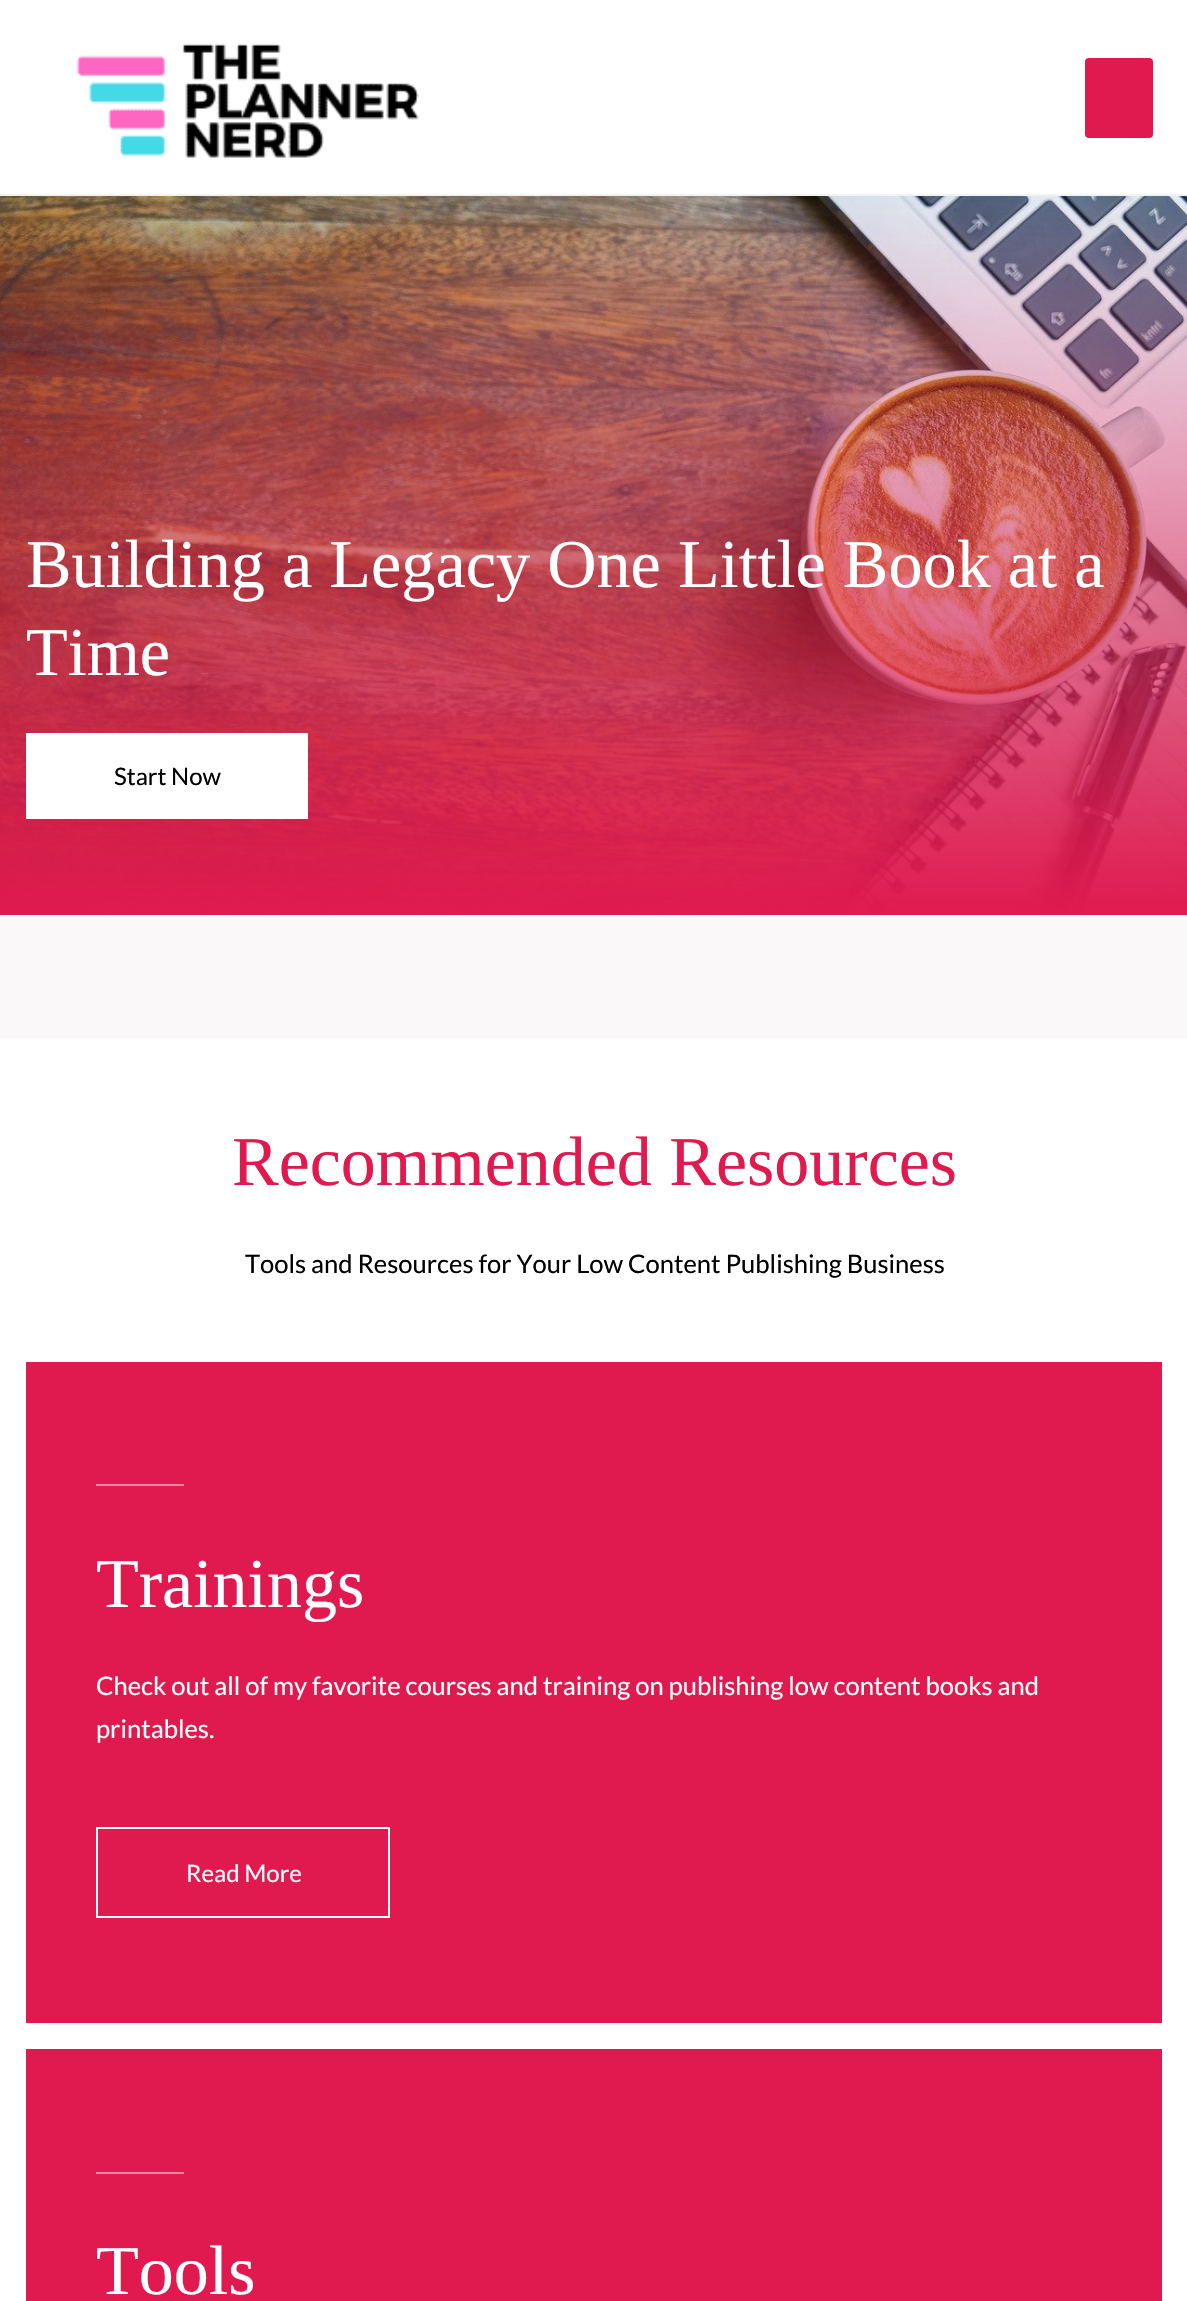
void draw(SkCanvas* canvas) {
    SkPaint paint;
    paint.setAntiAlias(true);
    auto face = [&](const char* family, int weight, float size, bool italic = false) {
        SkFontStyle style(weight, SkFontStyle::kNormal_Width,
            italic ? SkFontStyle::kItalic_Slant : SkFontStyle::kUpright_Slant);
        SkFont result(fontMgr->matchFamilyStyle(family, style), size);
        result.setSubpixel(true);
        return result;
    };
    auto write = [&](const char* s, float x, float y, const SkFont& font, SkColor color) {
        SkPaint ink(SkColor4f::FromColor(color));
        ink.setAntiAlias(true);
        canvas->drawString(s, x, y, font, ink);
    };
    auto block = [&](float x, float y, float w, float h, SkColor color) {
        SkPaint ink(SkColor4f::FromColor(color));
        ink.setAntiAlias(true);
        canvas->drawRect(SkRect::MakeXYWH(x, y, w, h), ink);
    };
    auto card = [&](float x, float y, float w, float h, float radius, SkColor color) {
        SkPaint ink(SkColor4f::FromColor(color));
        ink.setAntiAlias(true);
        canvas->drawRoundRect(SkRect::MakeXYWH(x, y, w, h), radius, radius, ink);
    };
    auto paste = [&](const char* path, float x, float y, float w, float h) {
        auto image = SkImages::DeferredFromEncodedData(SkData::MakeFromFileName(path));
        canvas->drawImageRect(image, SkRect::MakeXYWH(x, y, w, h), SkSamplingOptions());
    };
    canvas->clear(SK_ColorWHITE);
    block(0, 194, 1187, 2, SkColorSetRGB(241, 242, 242));
    paste("pic1.png", 76, 43, 343, 115);
    card(1085, 58, 68, 80, 4, SkColorSetRGB(224, 26, 79));
    paste("pic2.png", 0, 196, 1187, 719);
    auto kFont1 = face("Liberation Serif", 400, 68.25f);
    write("Building a Legacy One Little Book at a", 26, 587, kFont1, SK_ColorWHITE);
    write("Time", 26, 675, kFont1, SK_ColorWHITE);
    block(26, 733, 282, 86, SK_ColorWHITE);
    auto kFont2 = face("Lato", 400, 24);
    write("Start Now", 114, 785, kFont2, SK_ColorBLACK);
    block(0, 915, 1187, 123, SkColorSetRGB(251, 248, 249));
    auto kFont3 = face("Liberation Serif", 400, 70);
    write("Recommended Resources", 232, 1185, kFont3, SkColorSetRGB(224, 26, 79));
    auto kFont4 = face("Lato", 400, 25.55f);
    write("Tools and Resources for Your Low Content Publishing Business", 245, 1273, kFont4, SK_ColorBLACK);
    block(26, 1362, 1136, 661, SkColorSetRGB(224, 26, 79));
    block(96, 1484, 88, 2, SkColorSetRGB(239, 134, 162));
    write("Trainings", 96, 1607, kFont3, SK_ColorWHITE);
    write("Check out all of my favorite courses and training on publishing low content books and", 96, 1695, kFont4, SK_ColorWHITE);
    write("printables.", 96, 1738, kFont4, SK_ColorWHITE);
    paint.setStyle(SkPaint::kStroke_Style);
    paint.setStrokeWidth(2);
    paint.setColor(SK_ColorWHITE);
    canvas->drawRect(SkRect::MakeXYWH(97, 1828, 292, 89), paint);
    write("Read More", 186, 1882, kFont2, SK_ColorWHITE);
    block(26, 2049, 1136, 252, SkColorSetRGB(224, 26, 79));
    block(96, 2172, 88, 2, SkColorSetRGB(239, 134, 162));
    write("Tools", 96, 2294, kFont3, SK_ColorWHITE);
}
